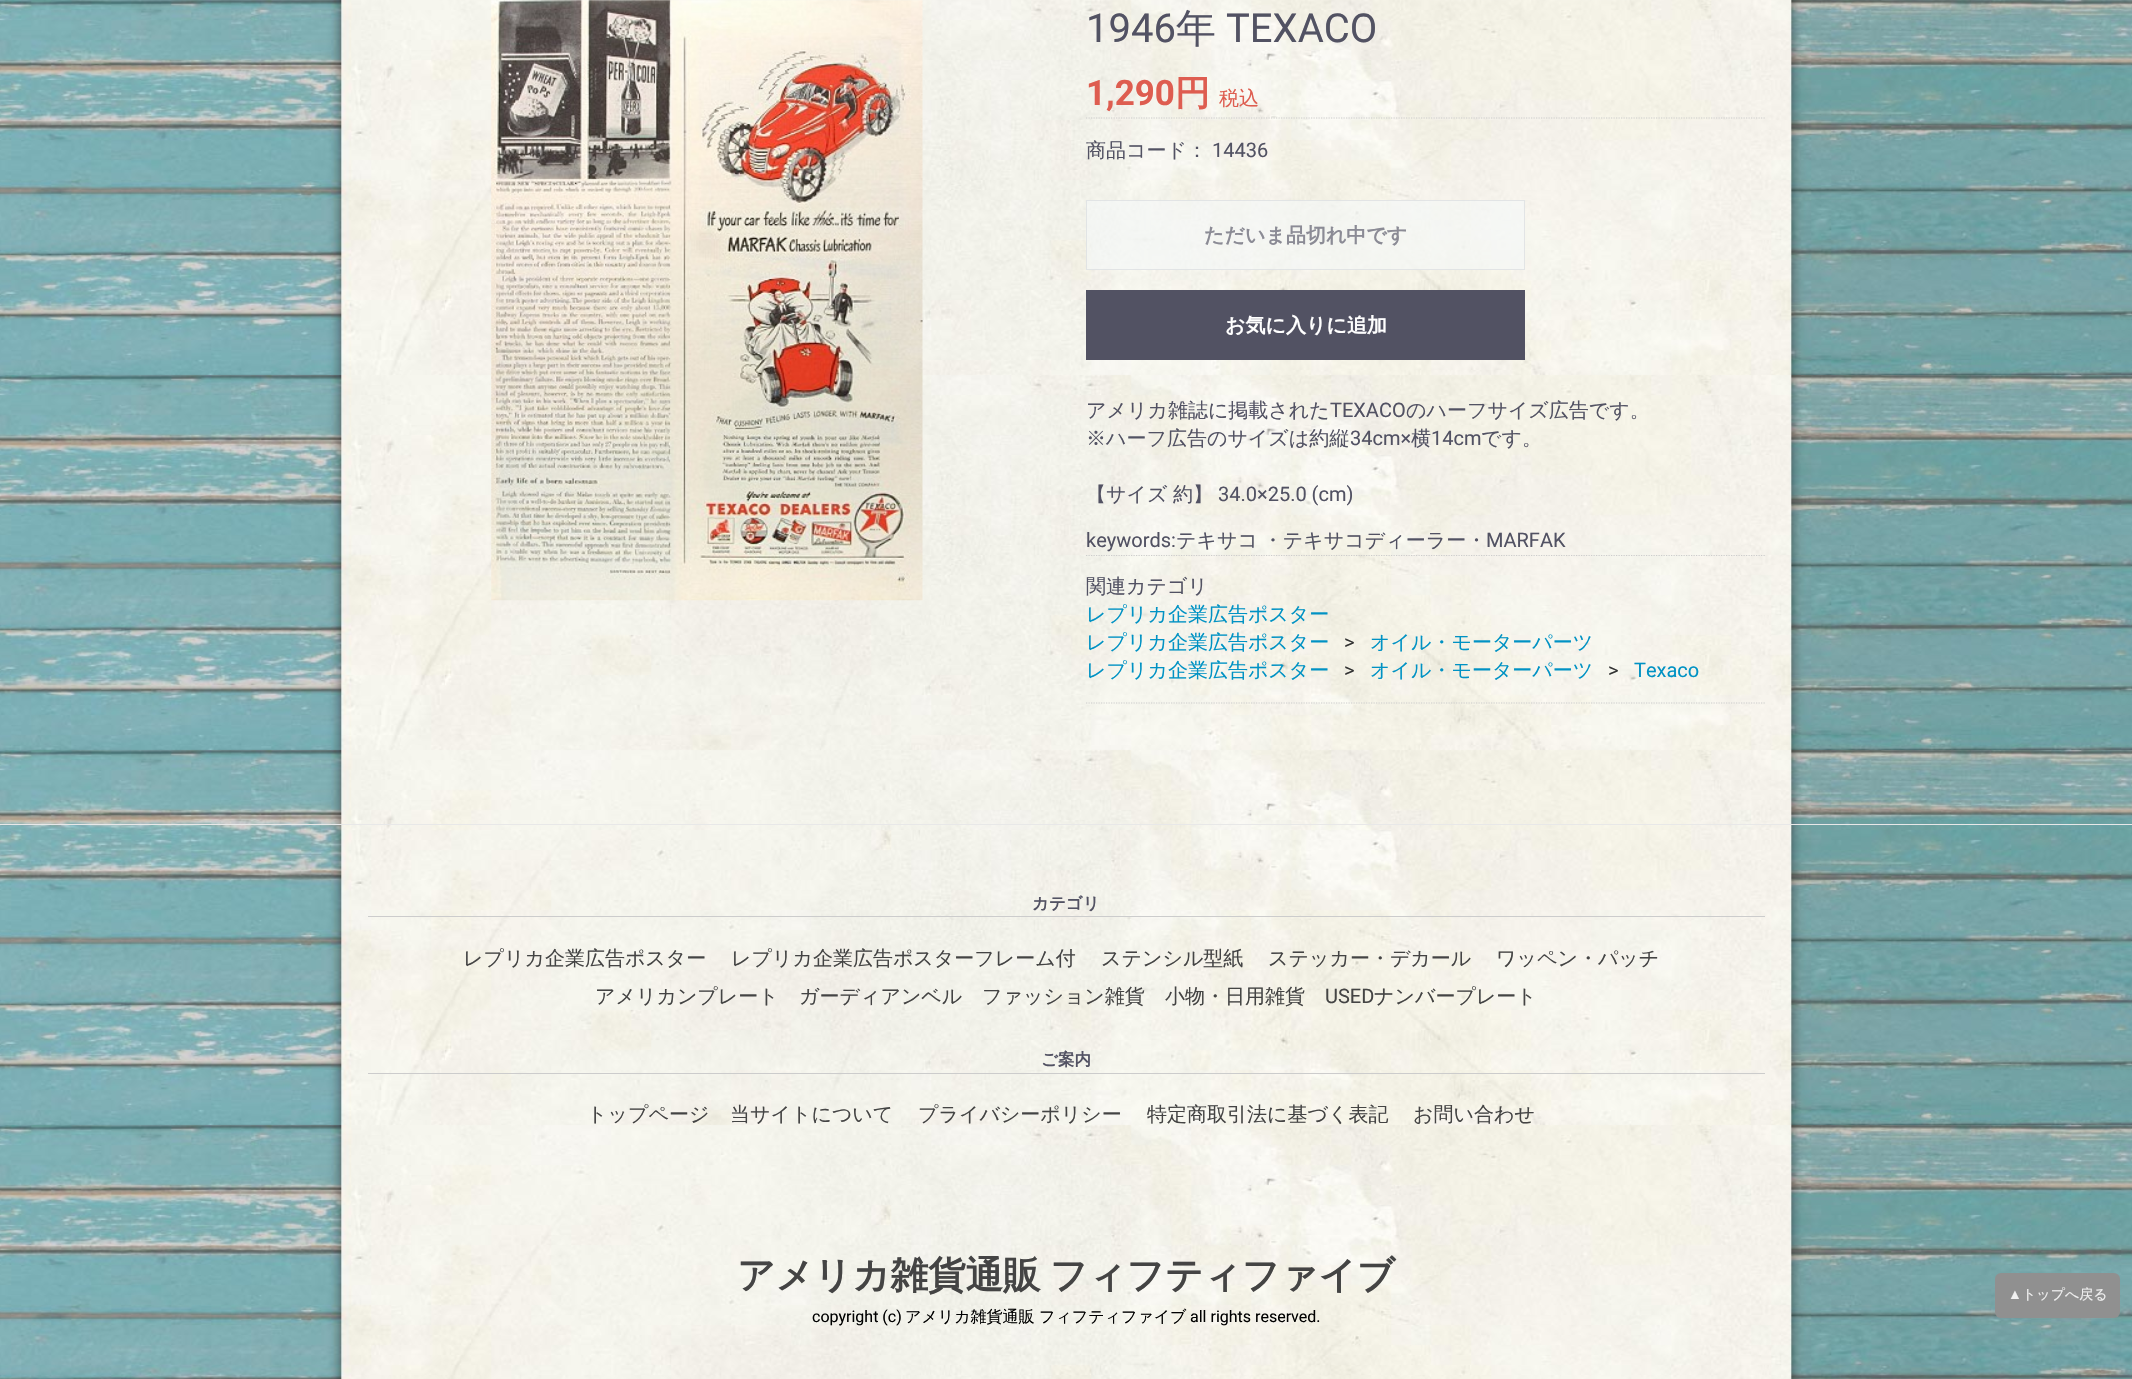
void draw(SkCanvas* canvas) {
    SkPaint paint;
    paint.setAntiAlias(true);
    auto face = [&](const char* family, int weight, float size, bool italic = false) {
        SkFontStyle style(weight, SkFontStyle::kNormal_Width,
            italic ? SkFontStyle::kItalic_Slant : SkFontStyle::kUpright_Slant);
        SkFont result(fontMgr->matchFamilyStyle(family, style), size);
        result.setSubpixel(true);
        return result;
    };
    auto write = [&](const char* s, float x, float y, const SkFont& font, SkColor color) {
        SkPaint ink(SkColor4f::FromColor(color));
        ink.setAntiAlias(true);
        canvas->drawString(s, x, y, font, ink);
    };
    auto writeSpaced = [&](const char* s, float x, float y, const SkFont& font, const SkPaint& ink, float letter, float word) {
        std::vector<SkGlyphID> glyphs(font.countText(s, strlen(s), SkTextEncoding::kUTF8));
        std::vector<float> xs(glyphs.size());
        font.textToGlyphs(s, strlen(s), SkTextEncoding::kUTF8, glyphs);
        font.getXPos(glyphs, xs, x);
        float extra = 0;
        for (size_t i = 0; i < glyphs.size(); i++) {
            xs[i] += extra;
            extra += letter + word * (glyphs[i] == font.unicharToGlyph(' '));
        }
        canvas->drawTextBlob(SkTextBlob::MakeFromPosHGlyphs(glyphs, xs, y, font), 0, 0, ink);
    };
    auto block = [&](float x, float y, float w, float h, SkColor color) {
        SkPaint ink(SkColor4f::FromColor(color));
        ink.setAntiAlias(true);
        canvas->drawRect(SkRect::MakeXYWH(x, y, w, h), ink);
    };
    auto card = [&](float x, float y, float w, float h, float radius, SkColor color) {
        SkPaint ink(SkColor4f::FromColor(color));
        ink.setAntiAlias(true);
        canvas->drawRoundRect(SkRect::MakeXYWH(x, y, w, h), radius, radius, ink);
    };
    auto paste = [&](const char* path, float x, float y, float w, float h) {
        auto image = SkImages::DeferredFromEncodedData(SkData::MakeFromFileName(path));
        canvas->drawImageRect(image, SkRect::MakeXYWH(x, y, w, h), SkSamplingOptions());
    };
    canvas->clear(SK_ColorWHITE);
    paste("pic1.png", 0, 0, 2132, 1379);
    paste("pic2.png", 491, 0, 432, 601);
    auto kFont1 = face("Roboto", 400, 40);
    write("1946", 1086, 42, kFont1, SkColorSetRGB(82, 82, 99));
    auto kFont2 = face("WenQuanYi Zen Hei", 500, 40);
    write("年", 1176, 42, kFont2, SkColorSetRGB(82, 82, 99));
    write("TEXACO", 1226, 42, kFont1, SkColorSetRGB(82, 82, 99));
    auto kFont3 = face("Roboto", 700, 35);
    write("1,290", 1086, 105, kFont3, SkColorSetRGB(222, 93, 80));
    auto kFont4 = face("WenQuanYi Zen Hei", 700, 35);
    write("円", 1175, 105, kFont4, SkColorSetRGB(222, 93, 80));
    auto kFont5 = face("WenQuanYi Zen Hei", 500, 20);
    write("税込", 1219, 105, kFont5, SkColorSetRGB(222, 93, 80));
    paint.setStyle(SkPaint::kStroke_Style);
    paint.setStrokeWidth(1.2f);
    paint.setColor(SkColorSetRGB(204, 204, 204));
    paint.setPathEffect(SkDashPathEffect::Make({{1.25f, 1.25f}}, 0));
    canvas->drawPath(SkPathBuilder().moveTo(1086, 118).lineTo(1765, 118).detach(), paint);
    paint.setPathEffect(nullptr);
    write("商品コード：", 1086, 157, kFont5, SkColorSetRGB(82, 82, 99));
    auto kFont6 = face("Roboto", 400, 20);
    write("14436", 1212, 157, kFont6, SkColorSetRGB(82, 82, 99));
    block(1086, 200, 439, 70, SkColorSetARGB(166, 245, 247, 248));
    paint.setStrokeWidth(1);
    paint.setColor(SkColorSetARGB(166, 215, 218, 221));
    canvas->drawRect(SkRect::MakeXYWH(1086.5f, 200.5f, 438, 69), paint);
    auto kFont7 = face("WenQuanYi Zen Hei", 700, 20);
    write("ただいま品切れ中です", 1204, 242, kFont7, SkColorSetRGB(139, 139, 149));
    block(1086, 290, 439, 70, SkColorSetRGB(82, 82, 99));
    write("お気に入りに追加", 1225, 332, kFont7, SK_ColorWHITE);
    write("アメリカ雑誌に掲載された", 1086, 417, kFont5, SkColorSetRGB(82, 82, 99));
    write("TEXACO", 1330, 417, kFont6, SkColorSetRGB(82, 82, 99));
    write("のハーフサイズ広告です。", 1406, 417, kFont5, SkColorSetRGB(82, 82, 99));
    write("※ハーフ広告のサイズは約縦", 1086, 445, kFont5, SkColorSetRGB(82, 82, 99));
    write("34cm×", 1350, 445, kFont6, SkColorSetRGB(82, 82, 99));
    write("横", 1411, 445, kFont5, SkColorSetRGB(82, 82, 99));
    write("14cm", 1431, 445, kFont6, SkColorSetRGB(82, 82, 99));
    write("です。", 1481, 445, kFont5, SkColorSetRGB(82, 82, 99));
    write("【サイズ", 1086, 501, kFont5, SkColorSetRGB(82, 82, 99));
    write("約】", 1173, 501, kFont5, SkColorSetRGB(82, 82, 99));
    write("34.0×25.0 (cm)", 1218, 501, kFont6, SkColorSetRGB(82, 82, 99));
    write("keywords:", 1086, 547, kFont6, SkColorSetRGB(82, 82, 99));
    paint.setStyle(SkPaint::kFill_Style);
    paint.setColor(SkColorSetRGB(82, 82, 99));
    writeSpaced("テキサコ ・テキサコディーラー・", 1176, 547, kFont5, paint, 0, -1);
    write("MARFAK", 1486, 547, kFont6, SkColorSetRGB(82, 82, 99));
    paint.setStyle(SkPaint::kStroke_Style);
    paint.setStrokeWidth(1.2f);
    paint.setColor(SkColorSetRGB(204, 204, 204));
    paint.setPathEffect(SkDashPathEffect::Make({{1.25f, 1.25f}}, 0));
    canvas->drawPath(SkPathBuilder().moveTo(1086, 555.5f).lineTo(1765, 555.5f).detach(), paint);
    paint.setPathEffect(nullptr);
    paint.setPathEffect(SkDashPathEffect::Make({{1.25f, 1.25f}}, 0));
    canvas->drawPath(SkPathBuilder().moveTo(1086, 703).lineTo(1765, 703).detach(), paint);
    paint.setPathEffect(nullptr);
    write("関連カテゴリ", 1086, 593, kFont5, SkColorSetRGB(82, 82, 99));
    write("レプリカ企業広告ポスター", 1086, 621, kFont5, SkColorSetRGB(0, 146, 196));
    write("レプリカ企業広告ポスター", 1086, 649, kFont5, SkColorSetRGB(0, 146, 196));
    write(">", 1344, 649, kFont6, SkColorSetRGB(51, 51, 51));
    write("オイル・モーターパーツ", 1370, 649, kFont5, SkColorSetRGB(0, 146, 196));
    write("レプリカ企業広告ポスター", 1086, 677, kFont5, SkColorSetRGB(0, 146, 196));
    write(">", 1344, 677, kFont6, SkColorSetRGB(51, 51, 51));
    write("オイル・モーターパーツ", 1370, 677, kFont5, SkColorSetRGB(0, 146, 196));
    write(">", 1608, 677, kFont6, SkColorSetRGB(51, 51, 51));
    write("Texaco", 1634, 677, kFont6, SkColorSetRGB(0, 146, 196));
    block(0, 824, 2132, 1, SkColorSetRGB(232, 232, 232));
    block(368, 916, 1397, 1, SkColorSetRGB(204, 204, 204));
    auto kFont8 = face("WenQuanYi Zen Hei", 700, 16.5f);
    write("カテゴリ", 1032, 909, kFont8, SkColorSetRGB(82, 82, 99));
    write("レプリカ企業広告ポスター", 463, 965, kFont5, SkColorSetRGB(68, 68, 68));
    write("レプリカ企業広告ポスターフレーム付", 731, 965, kFont5, SkColorSetRGB(68, 68, 68));
    write("ステンシル型紙", 1101, 965, kFont5, SkColorSetRGB(68, 68, 68));
    write("ステッカー・デカール", 1268, 965, kFont5, SkColorSetRGB(68, 68, 68));
    write("ワッペン・パッチ", 1496, 965, kFont5, SkColorSetRGB(68, 68, 68));
    write("アメリカンプレート", 595, 1003, kFont5, SkColorSetRGB(68, 68, 68));
    write("ガーディアンベル", 799, 1003, kFont5, SkColorSetRGB(68, 68, 68));
    write("ファッション雑貨", 982, 1003, kFont5, SkColorSetRGB(68, 68, 68));
    write("小物・日用雑貨", 1165, 1003, kFont5, SkColorSetRGB(68, 68, 68));
    write("USED", 1325, 1003, kFont6, SkColorSetRGB(68, 68, 68));
    write("ナンバープレート", 1374, 1003, kFont5, SkColorSetRGB(68, 68, 68));
    block(368, 1073, 1397, 1, SkColorSetRGB(204, 204, 204));
    write("ご案内", 1041, 1065, kFont8, SkColorSetRGB(82, 82, 99));
    write("トップページ", 587, 1121, kFont5, SkColorSetRGB(68, 68, 68));
    write("当サイトについて", 730, 1121, kFont5, SkColorSetRGB(68, 68, 68));
    write("プライバシーポリシー", 918, 1121, kFont5, SkColorSetRGB(68, 68, 68));
    write("特定商取引法に基づく表記", 1147, 1121, kFont5, SkColorSetRGB(68, 68, 68));
    write("お問い合わせ", 1413, 1121, kFont5, SkColorSetRGB(68, 68, 68));
    auto kFont9 = face("WenQuanYi Zen Hei", 700, 37.5f);
    paint.setStyle(SkPaint::kFill_Style);
    paint.setColor(SkColorSetRGB(68, 68, 68));
    writeSpaced("アメリカ雑貨通販 フィフティファイブ", 737, 1288, kFont9, paint, 0, -2);
    auto kFont10 = face("Roboto", 400, 16);
    write("copyright (c)", 812, 1322, kFont10, SK_ColorBLACK);
    auto kFont11 = face("WenQuanYi Zen Hei", 500, 16);
    write("アメリカ雑貨通販", 905, 1322, kFont11, SK_ColorBLACK);
    write("フィフティファイブ", 1039, 1322, kFont11, SK_ColorBLACK);
    write("all rights reserved.", 1190, 1322, kFont10, SK_ColorBLACK);
    card(1995, 1273, 125, 45, 6, SkColorSetRGB(144, 144, 144));
    auto kFont12 = face("Liberation Sans", 400, 14);
    write("▲", 2008, 1299, kFont12, SkColorSetRGB(240, 240, 240));
    auto kFont13 = face("WenQuanYi Zen Hei", 500, 14);
    write("トップへ戻る", 2022, 1299, kFont13, SkColorSetRGB(240, 240, 240));
}
